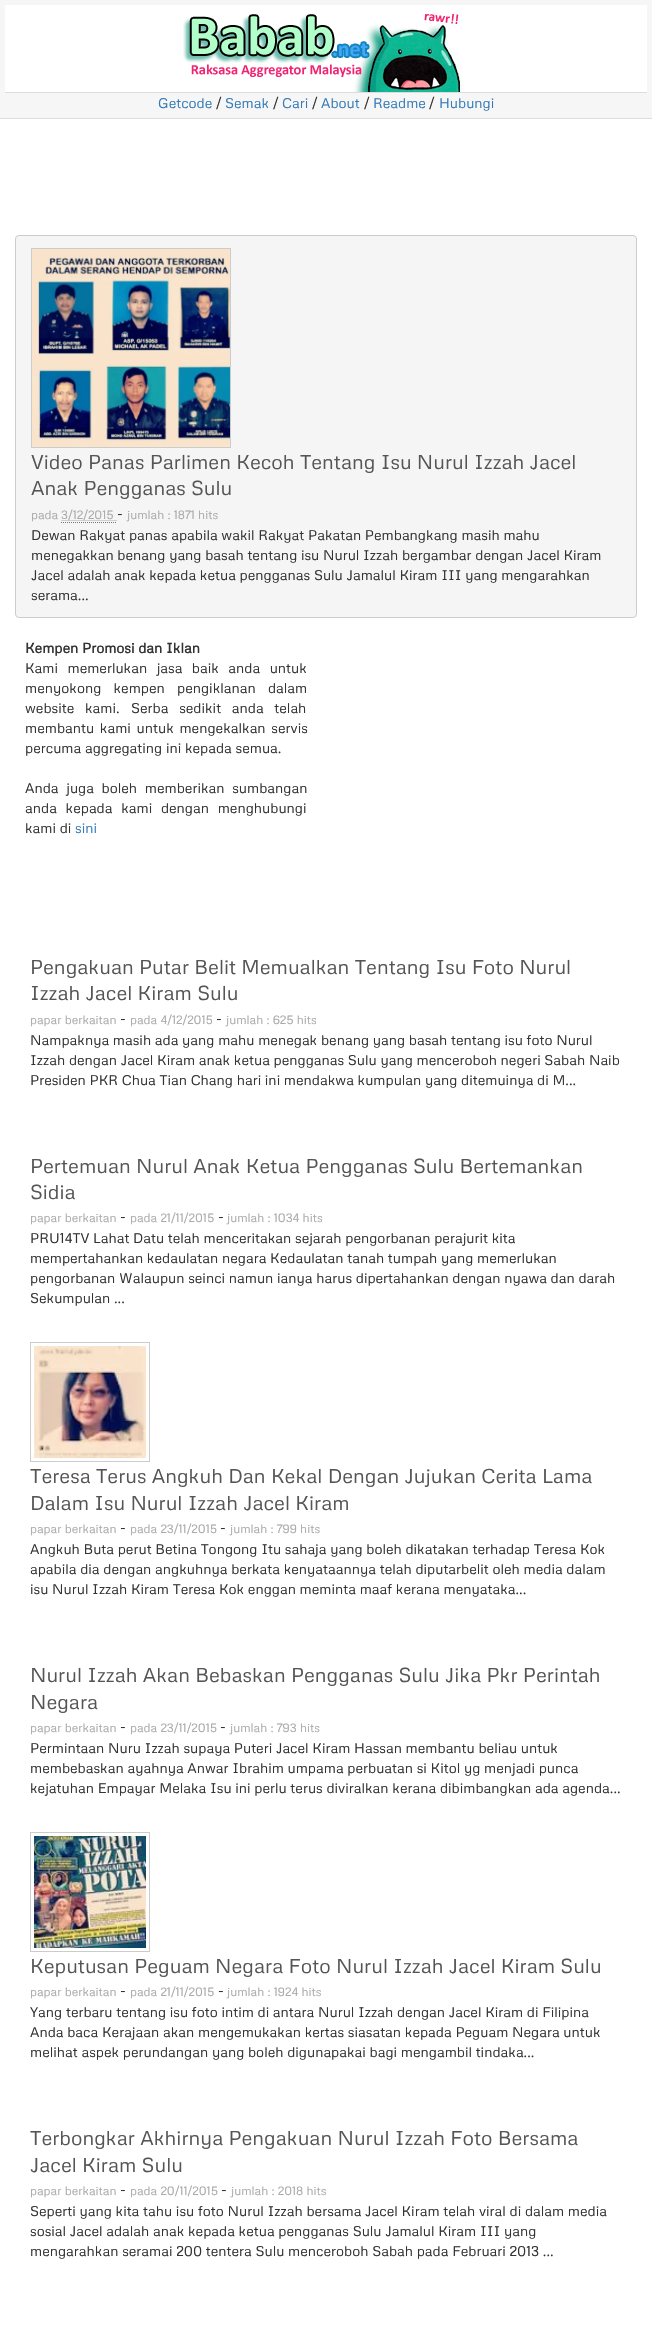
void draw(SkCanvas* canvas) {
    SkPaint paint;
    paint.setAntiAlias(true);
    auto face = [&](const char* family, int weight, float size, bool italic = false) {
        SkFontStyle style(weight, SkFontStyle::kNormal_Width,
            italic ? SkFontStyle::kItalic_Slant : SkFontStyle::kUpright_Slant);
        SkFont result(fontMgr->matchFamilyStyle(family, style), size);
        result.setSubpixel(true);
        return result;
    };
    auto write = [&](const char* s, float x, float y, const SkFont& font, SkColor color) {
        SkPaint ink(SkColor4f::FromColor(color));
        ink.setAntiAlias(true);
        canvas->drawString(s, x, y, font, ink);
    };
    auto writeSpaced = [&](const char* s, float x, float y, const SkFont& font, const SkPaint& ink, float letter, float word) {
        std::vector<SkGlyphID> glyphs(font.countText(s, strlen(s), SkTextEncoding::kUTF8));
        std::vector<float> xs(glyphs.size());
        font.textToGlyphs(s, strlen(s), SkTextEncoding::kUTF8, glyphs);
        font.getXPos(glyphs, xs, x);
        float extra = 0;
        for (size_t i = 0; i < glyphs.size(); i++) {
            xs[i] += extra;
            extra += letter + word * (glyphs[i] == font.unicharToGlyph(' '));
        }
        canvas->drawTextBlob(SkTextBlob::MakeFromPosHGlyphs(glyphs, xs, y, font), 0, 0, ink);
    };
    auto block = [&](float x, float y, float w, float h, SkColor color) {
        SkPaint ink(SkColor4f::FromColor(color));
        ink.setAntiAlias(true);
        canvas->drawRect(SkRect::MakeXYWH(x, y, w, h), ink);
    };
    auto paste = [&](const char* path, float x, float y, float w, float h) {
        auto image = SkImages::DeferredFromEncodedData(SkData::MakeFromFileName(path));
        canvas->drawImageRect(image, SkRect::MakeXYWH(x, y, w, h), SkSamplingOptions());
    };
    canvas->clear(SK_ColorWHITE);
    block(0, 0, 652, 118, SkColorSetRGB(246, 246, 246));
    block(0, 118, 652, 1, SkColorSetRGB(221, 221, 221));
    block(5, 5, 642, 87, SK_ColorWHITE);
    block(5, 92, 642, 1, SkColorSetRGB(221, 221, 221));
    paste("pic1.png", 183, 14, 279, 78);
    auto kFont1 = face("Metrophobic", 400, 14);
    write("Getcode", 158, 108, kFont1, SkColorSetRGB(51, 122, 183));
    write("/", 216, 108, kFont1, SkColorSetRGB(51, 51, 51));
    write("Semak", 225, 108, kFont1, SkColorSetRGB(51, 122, 183));
    write("/", 273, 108, kFont1, SkColorSetRGB(51, 51, 51));
    write("Cari", 282, 108, kFont1, SkColorSetRGB(51, 122, 183));
    write("/", 312, 108, kFont1, SkColorSetRGB(51, 51, 51));
    write("About", 321, 108, kFont1, SkColorSetRGB(51, 122, 183));
    write("/", 364, 108, kFont1, SkColorSetRGB(51, 51, 51));
    write("Readme", 373, 108, kFont1, SkColorSetRGB(51, 122, 183));
    write("/", 429, 108, kFont1, SkColorSetRGB(51, 51, 51));
    write("Hubungi", 439, 108, kFont1, SkColorSetRGB(51, 122, 183));
    paint.setColor(SkColorSetRGB(245, 245, 245));
    canvas->drawRoundRect(SkRect::MakeXYWH(15.5f, 235.5f, 621, 382), 3.5f, 3.5f, paint);
    paint.setStyle(SkPaint::kStroke_Style);
    paint.setStrokeWidth(1);
    paint.setColor(SkColorSetRGB(204, 204, 204));
    canvas->drawRoundRect(SkRect::MakeXYWH(15.5f, 235.5f, 621, 382), 3.5f, 3.5f, paint);
    canvas->drawRect(SkRect::MakeXYWH(31.5f, 248.5f, 199, 199), paint);
    paste("pic2.png", 32, 249, 198, 198);
    auto kFont2 = face("Metrophobic", 400, 20);
    write("Video Panas Parlimen Kecoh Tentang Isu Nurul Izzah Jacel", 31, 469, kFont2, SkColorSetRGB(85, 85, 85));
    write("Anak Pengganas Sulu", 31, 495, kFont2, SkColorSetRGB(85, 85, 85));
    auto kFont3 = face("Metrophobic", 400, 12);
    write("pada", 31, 519, kFont3, SkColorSetRGB(170, 170, 170));
    paint.setColor(SkColorSetRGB(170, 170, 170));
    paint.setPathEffect(SkDashPathEffect::Make({{1, 1}}, 0));
    canvas->drawPath(SkPathBuilder().moveTo(61.5f, 520.5f).lineTo(117, 520.5f).detach(), paint);
    paint.setPathEffect(nullptr);
    write("3/12/2015", 61, 519, kFont3, SkColorSetRGB(170, 170, 170));
    paint.setColor(SkColorSetRGB(119, 119, 119));
    paint.setPathEffect(SkDashPathEffect::Make({{1, 1}}, 0));
    canvas->drawPath(SkPathBuilder().moveTo(61, 522.5f).lineTo(117, 522.5f).detach(), paint);
    paint.setPathEffect(nullptr);
    write("-", 117, 519, kFont1, SkColorSetRGB(51, 51, 51));
    write("jumlah : 1871 hits", 127, 519, kFont3, SkColorSetRGB(170, 170, 170));
    write("Dewan Rakyat panas apabila wakil Rakyat Pakatan Pembangkang masih mahu", 31, 540, kFont1, SkColorSetRGB(51, 51, 51));
    write("menegakkan benang yang basah tentang isu Nurul Izzah bergambar dengan Jacel Kiram", 31, 560, kFont1, SkColorSetRGB(51, 51, 51));
    write("Jacel adalah anak kepada ketua pengganas Sulu Jamalul Kiram III yang mengarahkan", 31, 580, kFont1, SkColorSetRGB(51, 51, 51));
    write("serama...", 31, 600, kFont1, SkColorSetRGB(51, 51, 51));
    auto kFont4 = face("Metrophobic", 700, 14);
    write("Kempen Promosi dan Iklan", 25, 653, kFont4, SkColorSetRGB(51, 51, 51));
    paint.setStyle(SkPaint::kFill_Style);
    paint.setColor(SkColorSetRGB(51, 51, 51));
    writeSpaced("Kami memerlukan jasa baik anda untuk", 25, 673, kFont1, paint, 0, 5.75f);
    writeSpaced("menyokong kempen pengiklanan dalam", 25, 693, kFont1, paint, 0, 8.5f);
    writeSpaced("website kami.", 25, 713, kFont1, paint, 0, 7);
    writeSpaced("Serba sedikit anda telah", 131, 713, kFont1, paint, 0, 7);
    writeSpaced("membantu kami untuk mengekalkan servis", 25, 733, kFont1, paint, 0, 2);
    write("percuma aggregating ini kepada semua.", 25, 753, kFont1, SkColorSetRGB(51, 51, 51));
    writeSpaced("Anda juga boleh memberikan sumbangan", 25, 793, kFont1, paint, 0, 4);
    writeSpaced("anda kepada kami dengan menghubungi", 25, 813, kFont1, paint, 0, 5);
    write("kami di", 25, 833, kFont1, SkColorSetRGB(51, 51, 51));
    write("sini", 75, 833, kFont1, SkColorSetRGB(51, 122, 183));
    write("Pengakuan Putar Belit Memualkan Tentang Isu Foto Nurul", 30, 974, kFont2, SkColorSetRGB(85, 85, 85));
    write("Izzah Jacel Kiram Sulu", 30, 1000, kFont2, SkColorSetRGB(85, 85, 85));
    write("papar berkaitan", 30, 1024, kFont3, SkColorSetRGB(170, 170, 170));
    write("-", 120, 1024, kFont1, SkColorSetRGB(51, 51, 51));
    write("pada 4/12/2015", 130, 1024, kFont3, SkColorSetRGB(170, 170, 170));
    write("-", 216, 1024, kFont1, SkColorSetRGB(51, 51, 51));
    write("jumlah : 625 hits", 226, 1024, kFont3, SkColorSetRGB(170, 170, 170));
    write("Nampaknya masih ada yang mahu menegak benang yang basah tentang isu foto Nurul", 30, 1045, kFont1, SkColorSetRGB(51, 51, 51));
    write("Izzah dengan Jacel Kiram anak ketua pengganas Sulu yang menceroboh negeri Sabah Naib", 30, 1065, kFont1, SkColorSetRGB(51, 51, 51));
    write("Presiden PKR Chua Tian Chang hari ini mendakwa kumpulan yang ditemuinya di M...", 30, 1085, kFont1, SkColorSetRGB(51, 51, 51));
    write("Pertemuan Nurul Anak Ketua Pengganas Sulu Bertemankan", 30, 1173, kFont2, SkColorSetRGB(85, 85, 85));
    write("Sidia", 30, 1199, kFont2, SkColorSetRGB(85, 85, 85));
    write("papar berkaitan", 30, 1222, kFont3, SkColorSetRGB(170, 170, 170));
    write("-", 120, 1222, kFont1, SkColorSetRGB(51, 51, 51));
    write("pada 21/11/2015", 130, 1222, kFont3, SkColorSetRGB(170, 170, 170));
    write("-", 218, 1222, kFont1, SkColorSetRGB(51, 51, 51));
    write("jumlah : 1034 hits", 227, 1222, kFont3, SkColorSetRGB(170, 170, 170));
    write("PRU14TV Lahat Datu telah menceritakan sejarah pengorbanan perajurit kita", 30, 1243, kFont1, SkColorSetRGB(51, 51, 51));
    write("mempertahankan kedaulatan negara Kedaulatan tanah tumpah yang memerlukan", 30, 1263, kFont1, SkColorSetRGB(51, 51, 51));
    write("pengorbanan Walaupun seinci namun ianya harus dipertahankan dengan nyawa dan darah", 30, 1283, kFont1, SkColorSetRGB(51, 51, 51));
    write("Sekumpulan ...", 30, 1303, kFont1, SkColorSetRGB(51, 51, 51));
    paint.setStyle(SkPaint::kStroke_Style);
    paint.setColor(SkColorSetRGB(204, 204, 204));
    canvas->drawRect(SkRect::MakeXYWH(30.5f, 1342.5f, 119, 119), paint);
    paste("pic3.png", 34, 1346, 112, 112);
    write("Teresa Terus Angkuh Dan Kekal Dengan Jujukan Cerita Lama", 30, 1483, kFont2, SkColorSetRGB(85, 85, 85));
    write("Dalam Isu Nurul Izzah Jacel Kiram", 30, 1510, kFont2, SkColorSetRGB(85, 85, 85));
    write("papar berkaitan", 30, 1533, kFont3, SkColorSetRGB(170, 170, 170));
    write("-", 120, 1533, kFont1, SkColorSetRGB(51, 51, 51));
    write("pada 23/11/2015", 130, 1533, kFont3, SkColorSetRGB(170, 170, 170));
    write("-", 220, 1533, kFont1, SkColorSetRGB(51, 51, 51));
    write("jumlah : 799 hits", 230, 1533, kFont3, SkColorSetRGB(170, 170, 170));
    write("Angkuh Buta perut Betina Tongong Itu sahaja yang boleh dikatakan terhadap Teresa Kok", 30, 1554, kFont1, SkColorSetRGB(51, 51, 51));
    write("apabila dia dengan angkuhnya berkata kenyataannya telah diputarbelit oleh media dalam", 30, 1574, kFont1, SkColorSetRGB(51, 51, 51));
    write("isu Nurul Izzah Kiram Teresa Kok enggan meminta maaf kerana menyataka...", 30, 1594, kFont1, SkColorSetRGB(51, 51, 51));
    write("Nurul Izzah Akan Bebaskan Pengganas Sulu Jika Pkr Perintah", 30, 1682, kFont2, SkColorSetRGB(85, 85, 85));
    write("Negara", 30, 1709, kFont2, SkColorSetRGB(85, 85, 85));
    write("papar berkaitan", 30, 1732, kFont3, SkColorSetRGB(170, 170, 170));
    write("-", 120, 1732, kFont1, SkColorSetRGB(51, 51, 51));
    write("pada 23/11/2015", 130, 1732, kFont3, SkColorSetRGB(170, 170, 170));
    write("-", 220, 1732, kFont1, SkColorSetRGB(51, 51, 51));
    write("jumlah : 793 hits", 230, 1732, kFont3, SkColorSetRGB(170, 170, 170));
    write("Permintaan Nuru Izzah supaya Puteri Jacel Kiram Hassan membantu beliau untuk", 30, 1753, kFont1, SkColorSetRGB(51, 51, 51));
    write("membebaskan ayahnya Anwar Ibrahim umpama perbuatan si Kitol yg menjadi punca", 30, 1773, kFont1, SkColorSetRGB(51, 51, 51));
    write("kejatuhan Empayar Melaka Isu ini perlu terus diviralkan kerana dibimbangkan ada agenda...", 30, 1793, kFont1, SkColorSetRGB(51, 51, 51));
    canvas->drawRect(SkRect::MakeXYWH(30.5f, 1832.5f, 119, 119), paint);
    paste("pic4.png", 34, 1836, 112, 112);
    write("Keputusan Peguam Negara Foto Nurul Izzah Jacel Kiram Sulu", 30, 1973, kFont2, SkColorSetRGB(85, 85, 85));
    write("papar berkaitan", 30, 1996, kFont3, SkColorSetRGB(170, 170, 170));
    write("-", 120, 1996, kFont1, SkColorSetRGB(51, 51, 51));
    write("pada 21/11/2015", 130, 1996, kFont3, SkColorSetRGB(170, 170, 170));
    write("-", 218, 1996, kFont1, SkColorSetRGB(51, 51, 51));
    write("jumlah : 1924 hits", 227, 1996, kFont3, SkColorSetRGB(170, 170, 170));
    write("Yang terbaru tentang isu foto intim di antara Nurul Izzah dengan Jacel Kiram di Filipina", 30, 2017, kFont1, SkColorSetRGB(51, 51, 51));
    write("Anda baca Kerajaan akan mengemukakan kertas siasatan kepada Peguam Negara untuk", 30, 2037, kFont1, SkColorSetRGB(51, 51, 51));
    write("melihat aspek perundangan yang boleh digunapakai bagi mengambil tindaka...", 30, 2057, kFont1, SkColorSetRGB(51, 51, 51));
    write("Terbongkar Akhirnya Pengakuan Nurul Izzah Foto Bersama", 30, 2145, kFont2, SkColorSetRGB(85, 85, 85));
    write("Jacel Kiram Sulu", 30, 2172, kFont2, SkColorSetRGB(85, 85, 85));
    write("papar berkaitan", 30, 2195, kFont3, SkColorSetRGB(170, 170, 170));
    write("-", 120, 2195, kFont1, SkColorSetRGB(51, 51, 51));
    write("pada 20/11/2015", 130, 2195, kFont3, SkColorSetRGB(170, 170, 170));
    write("-", 221, 2195, kFont1, SkColorSetRGB(51, 51, 51));
    write("jumlah : 2018 hits", 231, 2195, kFont3, SkColorSetRGB(170, 170, 170));
    write("Seperti yang kita tahu isu foto Nurul Izzah bersama Jacel Kiram telah viral di dalam media", 30, 2216, kFont1, SkColorSetRGB(51, 51, 51));
    write("sosial Jacel adalah anak kepada ketua pengganas Sulu Jamalul Kiram III yang", 30, 2236, kFont1, SkColorSetRGB(51, 51, 51));
    write("mengarahkan seramai 200 tentera Sulu menceroboh Sabah pada Februari 2013 ...", 30, 2256, kFont1, SkColorSetRGB(51, 51, 51));
}
